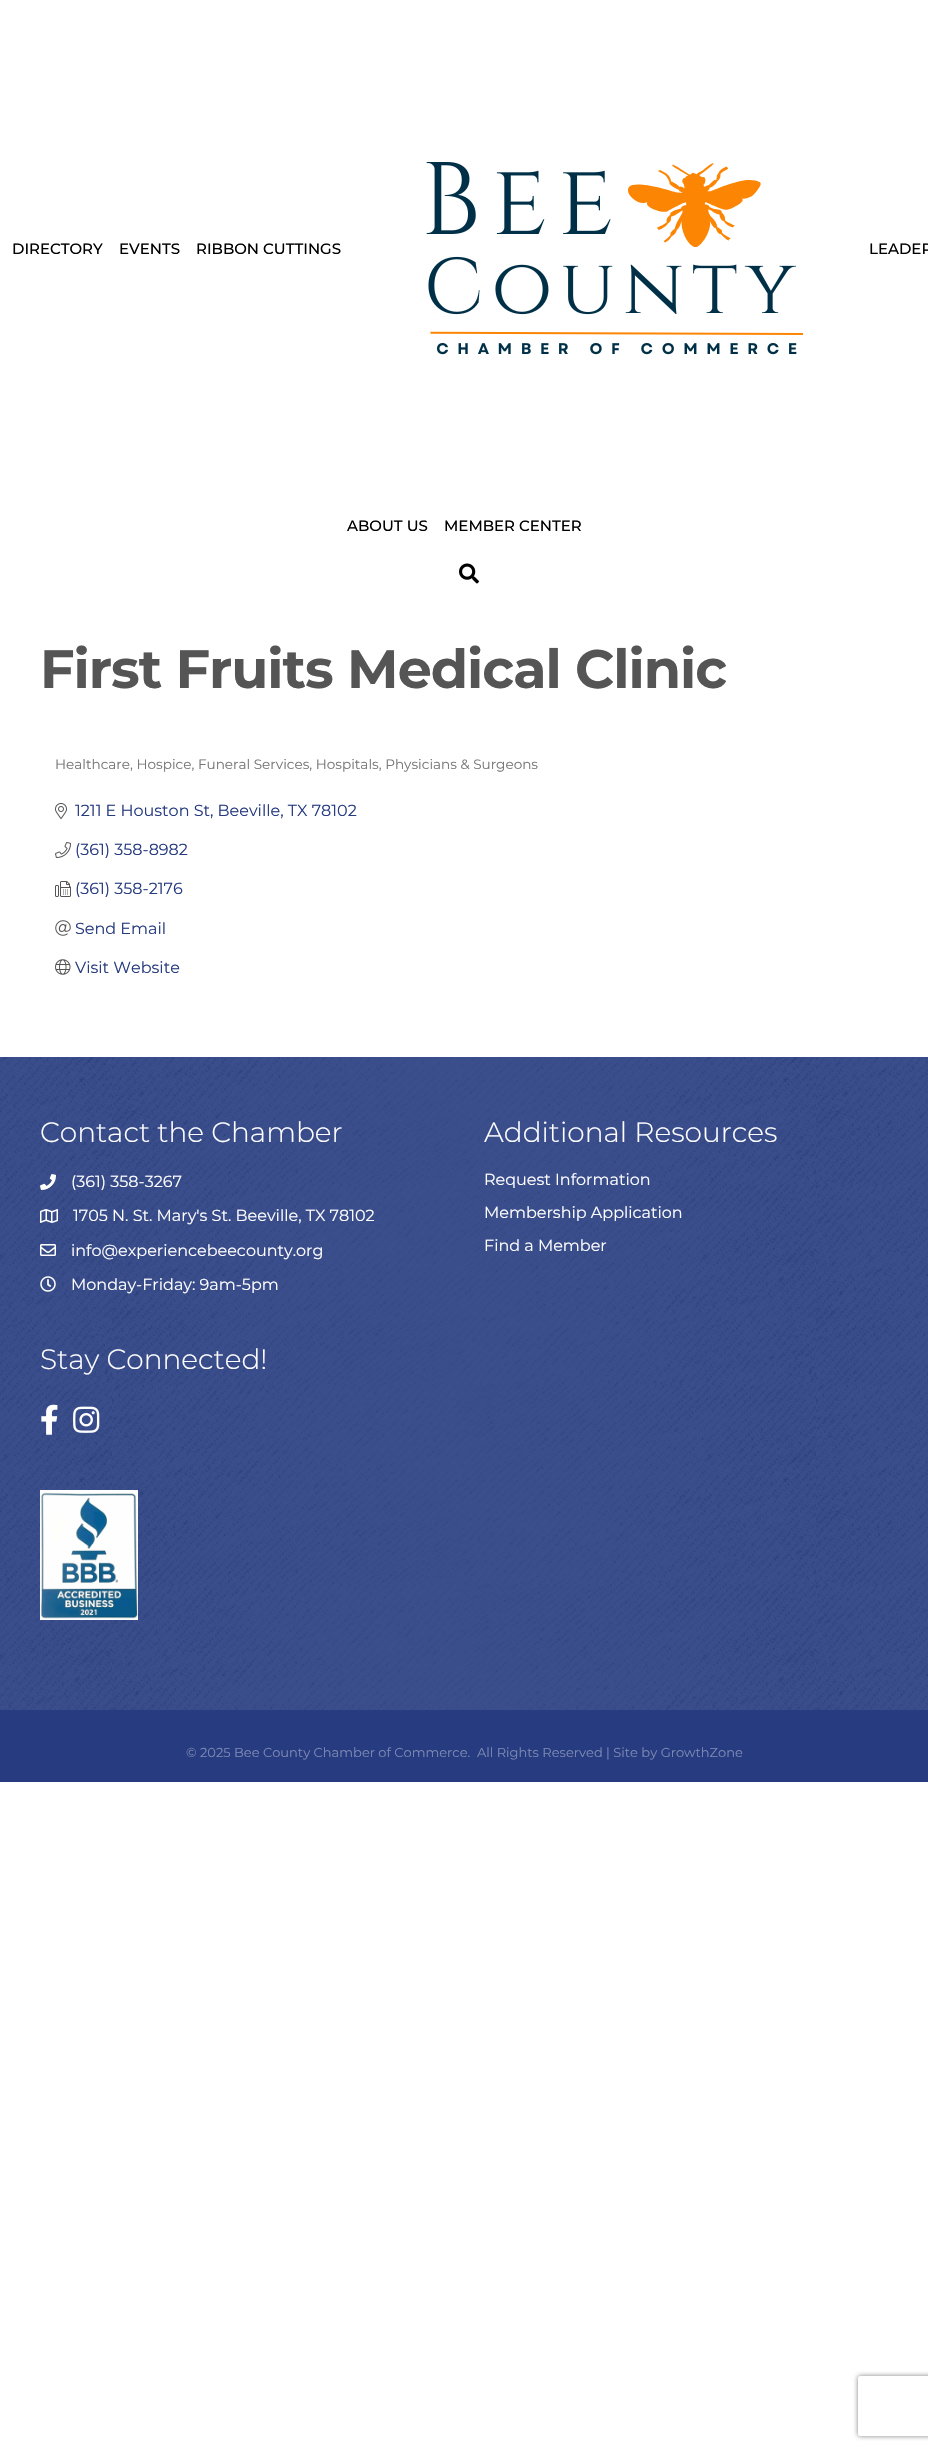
void draw(SkCanvas* canvas) {
    SkPaint paint;
    paint.setAntiAlias(true);
    auto face = [&](const char* family, int weight, float size, bool italic = false) {
        SkFontStyle style(weight, SkFontStyle::kNormal_Width,
            italic ? SkFontStyle::kItalic_Slant : SkFontStyle::kUpright_Slant);
        SkFont result(fontMgr->matchFamilyStyle(family, style), size);
        result.setSubpixel(true);
        return result;
    };
    auto write = [&](const char* s, float x, float y, const SkFont& font, SkColor color) {
        SkPaint ink(SkColor4f::FromColor(color));
        ink.setAntiAlias(true);
        canvas->drawString(s, x, y, font, ink);
    };
    auto writeSpaced = [&](const char* s, float x, float y, const SkFont& font, const SkPaint& ink, float letter, float word) {
        std::vector<SkGlyphID> glyphs(font.countText(s, strlen(s), SkTextEncoding::kUTF8));
        std::vector<float> xs(glyphs.size());
        font.textToGlyphs(s, strlen(s), SkTextEncoding::kUTF8, glyphs);
        font.getXPos(glyphs, xs, x);
        float extra = 0;
        for (size_t i = 0; i < glyphs.size(); i++) {
            xs[i] += extra;
            extra += letter + word * (glyphs[i] == font.unicharToGlyph(' '));
        }
        canvas->drawTextBlob(SkTextBlob::MakeFromPosHGlyphs(glyphs, xs, y, font), 0, 0, ink);
    };
    auto block = [&](float x, float y, float w, float h, SkColor color) {
        SkPaint ink(SkColor4f::FromColor(color));
        ink.setAntiAlias(true);
        canvas->drawRect(SkRect::MakeXYWH(x, y, w, h), ink);
    };
    auto paste = [&](const char* path, float x, float y, float w, float h) {
        auto image = SkImages::DeferredFromEncodedData(SkData::MakeFromFileName(path));
        canvas->drawImageRect(image, SkRect::MakeXYWH(x, y, w, h), SkSamplingOptions());
    };
    canvas->clear(SK_ColorWHITE);
    auto kFont1 = face("Montserrat", 500, 15);
    write("DIRECTORY", 12, 254, kFont1, SK_ColorBLACK);
    write("EVENTS", 119, 254, kFont1, SK_ColorBLACK);
    write("RIBBON CUTTINGS", 196, 254, kFont1, SK_ColorBLACK);
    paste("pic1.png", 426, 162, 377, 193);
    write("LEADER", 869, 254, kFont1, SK_ColorBLACK);
    write("ABOUT US", 347, 531, kFont1, SK_ColorBLACK);
    write("MEMBER CENTER", 444, 531, kFont1, SK_ColorBLACK);
    paste("pic2.png", 459, 563, 20, 21);
    auto kFont2 = face("Montserrat", 700, 54);
    paint.setColor(SkColorSetRGB(85, 85, 85));
    writeSpaced("First Fruits Medical Clinic", 40, 688, kFont2, paint, -1, 0);
    auto kFont3 = face("Montserrat", 400, 13.6f);
    write("Healthcare, Hospice, Funeral Services, Hospitals, Physicians & Surgeons", 55, 769, kFont3, SkColorSetRGB(119, 119, 119));
    paste("pic3.png", 55, 803, 12, 16);
    auto kFont4 = face("Montserrat", 400, 16);
    write("1211 E Houston St, Beeville, TX 78102", 75, 816, kFont4, SkColorSetRGB(38, 59, 128));
    paste("pic4.png", 55, 842, 16, 16);
    write("(361) 358-8982", 75, 855, kFont4, SkColorSetRGB(38, 59, 128));
    paste("pic5.png", 55, 881, 16, 16);
    write("(361) 358-2176", 75, 894, kFont4, SkColorSetRGB(38, 59, 128));
    paste("pic6.png", 55, 920, 16, 16);
    write("Send Email", 75, 934, kFont4, SkColorSetRGB(38, 59, 128));
    paste("pic7.png", 55, 959, 16, 16);
    write("Visit Website", 75, 973, kFont4, SkColorSetRGB(38, 59, 128));
    paste("pic8.png", 0, 1057, 928, 653);
    auto kFont5 = face("Montserrat", 300, 28);
    write("Contact the Chamber", 40, 1142, kFont5, SK_ColorWHITE);
    paste("pic9.png", 40, 1174, 16, 16);
    write("(361) 358-3267", 71, 1187, kFont4, SK_ColorWHITE);
    paste("pic10.png", 40, 1209, 18, 14);
    write("1705 N. St. Mary's St. Beeville, TX 78102", 73, 1221, kFont4, SK_ColorWHITE);
    paste("pic11.png", 40, 1244, 16, 12);
    write("info@experiencebeecounty.org", 71, 1256, kFont4, SK_ColorWHITE);
    paste("pic12.png", 40, 1276, 16, 16);
    write("Monday-Friday: 9am-5pm", 71, 1290, kFont4, SK_ColorWHITE);
    write("Additional Resources", 484, 1142, kFont5, SK_ColorWHITE);
    write("Request Information", 484, 1185, kFont4, SK_ColorWHITE);
    write("Membership Application", 484, 1218, kFont4, SK_ColorWHITE);
    write("Find a Member", 484, 1251, kFont4, SK_ColorWHITE);
    write("Stay Connected!", 40, 1369, kFont5, SK_ColorWHITE);
    paste("pic13.png", 41, 1404, 17, 31);
    paste("pic14.png", 73, 1406, 27, 27);
    paste("pic15.png", 40, 1490, 98, 130);
    block(0, 1710, 928, 72, SkColorSetRGB(38, 59, 128));
    auto kFont6 = face("Montserrat", 400, 13);
    write("© 2025 Bee County Chamber of Commerce.", 186, 1757, kFont6, SkColorSetRGB(125, 137, 179));
    write("All Rights Reserved | Site by GrowthZone", 477, 1757, kFont6, SkColorSetRGB(125, 137, 179));
    canvas->save();
    canvas->clipPath(SkPathBuilder(SkPathFillType::kEvenOdd).moveTo(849, 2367).lineTo(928, 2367).lineTo(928, 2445).lineTo(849, 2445).close().moveTo(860, 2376).lineTo(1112, 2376).cubicTo(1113, 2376, 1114, 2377, 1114, 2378).lineTo(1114, 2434).cubicTo(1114, 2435, 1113, 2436, 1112, 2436).lineTo(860, 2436).cubicTo(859, 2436, 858, 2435, 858, 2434).lineTo(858, 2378).cubicTo(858, 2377, 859, 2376, 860, 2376).close().detach(), true);
    paint.setColor(SkColorSetRGB(128, 128, 128));
    paint.setMaskFilter(SkMaskFilter::MakeBlur(kNormal_SkBlurStyle, 2.5f));
    canvas->drawRoundRect(SkRect::MakeXYWH(858, 2376, 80, 60), 2, 2, paint);
    paint.setMaskFilter(nullptr);
    canvas->restore();
}
